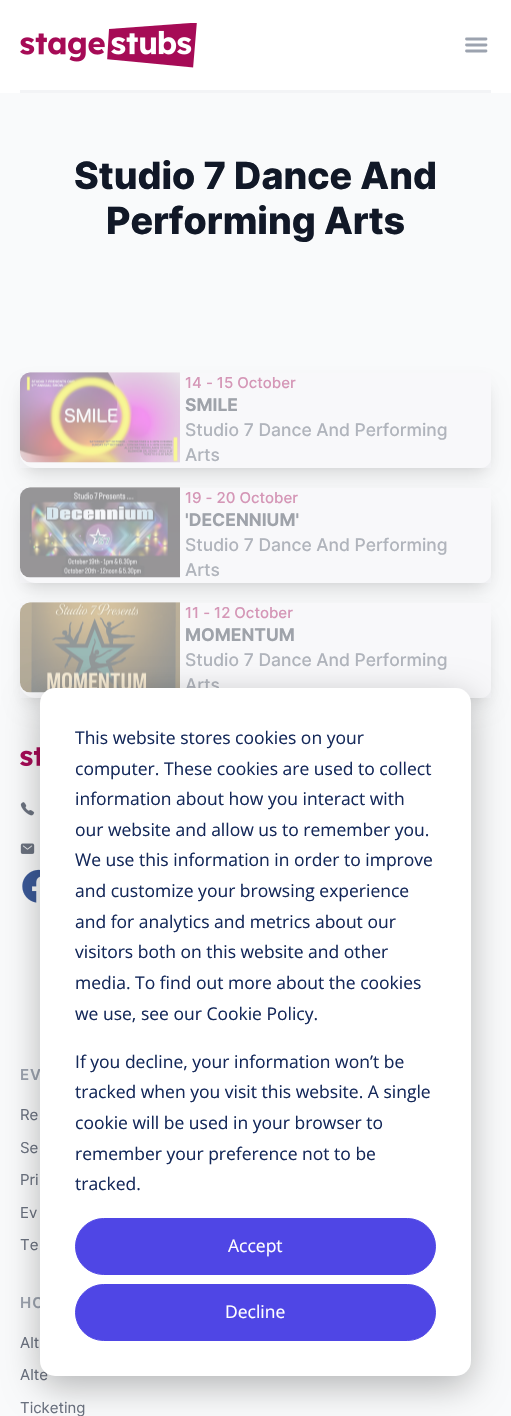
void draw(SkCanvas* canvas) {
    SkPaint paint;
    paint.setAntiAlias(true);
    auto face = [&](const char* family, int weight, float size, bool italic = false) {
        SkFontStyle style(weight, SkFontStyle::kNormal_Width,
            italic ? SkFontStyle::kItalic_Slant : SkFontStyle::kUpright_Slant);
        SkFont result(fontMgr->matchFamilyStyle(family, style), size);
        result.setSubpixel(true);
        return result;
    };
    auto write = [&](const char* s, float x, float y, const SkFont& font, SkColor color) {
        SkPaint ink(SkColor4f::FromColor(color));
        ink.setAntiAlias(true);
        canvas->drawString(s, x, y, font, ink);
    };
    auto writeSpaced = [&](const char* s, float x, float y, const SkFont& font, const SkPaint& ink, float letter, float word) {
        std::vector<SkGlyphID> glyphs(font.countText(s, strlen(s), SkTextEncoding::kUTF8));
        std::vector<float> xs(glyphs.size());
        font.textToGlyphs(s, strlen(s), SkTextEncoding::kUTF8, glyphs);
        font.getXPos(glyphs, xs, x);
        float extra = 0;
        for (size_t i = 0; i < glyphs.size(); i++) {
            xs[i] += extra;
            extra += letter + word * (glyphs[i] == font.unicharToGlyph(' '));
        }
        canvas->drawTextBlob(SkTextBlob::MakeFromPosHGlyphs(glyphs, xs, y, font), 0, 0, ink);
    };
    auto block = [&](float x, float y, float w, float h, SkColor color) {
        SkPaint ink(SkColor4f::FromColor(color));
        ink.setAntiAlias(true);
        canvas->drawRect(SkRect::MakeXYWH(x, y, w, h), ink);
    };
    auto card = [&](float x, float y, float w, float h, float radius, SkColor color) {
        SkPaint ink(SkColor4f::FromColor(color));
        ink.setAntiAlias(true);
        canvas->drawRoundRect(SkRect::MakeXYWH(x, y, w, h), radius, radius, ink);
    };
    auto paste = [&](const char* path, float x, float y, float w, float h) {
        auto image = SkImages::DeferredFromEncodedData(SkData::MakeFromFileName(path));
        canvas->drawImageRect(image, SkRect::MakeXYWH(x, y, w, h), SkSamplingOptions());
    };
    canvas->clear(SkColorSetRGB(249, 250, 251));
    block(0, 0, 511, 93, SK_ColorWHITE);
    block(20, 90, 471, 3, SkColorSetRGB(243, 244, 246));
    paste("pic1.png", 20, 23, 177, 45);
    paint.setStyle(SkPaint::kStroke_Style);
    paint.setStrokeWidth(2.8f);
    paint.setStrokeCap(SkPaint::kRound_Cap);
    paint.setColor(SkColorSetRGB(156, 163, 175));
    canvas->drawPath(SkPathBuilder().moveTo(466.5f, 39).lineTo(486, 39).moveTo(466.5f, 45).lineTo(486, 45).moveTo(466.5f, 51).lineTo(486, 51).detach(), paint);
    auto kFont1 = face("Inter", 800, 37.5f);
    write("Studio 7 Dance And", 74, 189, kFont1, SkColorSetRGB(17, 24, 39));
    write("Performing Arts", 106, 234, kFont1, SkColorSetRGB(17, 24, 39));
    paint.setStyle(SkPaint::kFill_Style);
    paint.setColor(SkColorSetARGB(13, 0, 0, 0));
    paint.setMaskFilter(SkMaskFilter::MakeBlur(kNormal_SkBlurStyle, 4));
    canvas->drawRoundRect(SkRect::MakeXYWH(23, 380, 466, 90), 13, 13, paint);
    paint.setMaskFilter(nullptr);
    paint.setColor(SkColorSetARGB(26, 0, 0, 0));
    paint.setMaskFilter(SkMaskFilter::MakeBlur(kNormal_SkBlurStyle, 9.5f));
    canvas->drawRoundRect(SkRect::MakeXYWH(24, 389, 464, 87), 11, 11, paint);
    paint.setMaskFilter(nullptr);
    card(20, 373, 471, 95, 15, SK_ColorWHITE);
    paint.setColor(SkColorSetRGB(249, 250, 251));
    canvas->drawPath(SkPathBuilder().moveTo(30, 373).lineTo(180, 373).lineTo(180, 463).lineTo(30, 463).cubicTo(24.5f, 463, 20, 458.5f, 20, 453).lineTo(20, 383).cubicTo(20, 377.5f, 24.5f, 373, 30, 373).close().detach(), paint);
    paste("pic2.png", 20, 372, 160, 91);
    paint.setColor(SK_ColorWHITE);
    canvas->drawPath(SkPathBuilder().moveTo(180, 373).lineTo(491, 373).lineTo(491, 458).cubicTo(491, 463.5f, 486.5f, 468, 481, 468).lineTo(190, 468).cubicTo(184.5f, 468, 180, 463.5f, 180, 458).close().detach(), paint);
    auto kFont2 = face("Inter", 500, 15);
    write("14 - 15 October", 185, 388, kFont2, SkColorSetRGB(166, 11, 86));
    auto kFont3 = face("Inter", 700, 17.5f);
    write("SMILE", 185, 411, kFont3, SkColorSetRGB(31, 41, 55));
    auto kFont4 = face("Inter", 500, 17.5f);
    write("Studio 7 Dance And Performing", 185, 436, kFont4, SkColorSetRGB(75, 85, 99));
    write("Arts", 185, 461, kFont4, SkColorSetRGB(75, 85, 99));
    block(20, 373, 471, 95, SkColorSetARGB(153, 243, 244, 246));
    paint.setColor(SkColorSetARGB(13, 0, 0, 0));
    paint.setMaskFilter(SkMaskFilter::MakeBlur(kNormal_SkBlurStyle, 4));
    canvas->drawRoundRect(SkRect::MakeXYWH(23, 495, 466, 90), 13, 13, paint);
    paint.setMaskFilter(nullptr);
    paint.setColor(SkColorSetARGB(26, 0, 0, 0));
    paint.setMaskFilter(SkMaskFilter::MakeBlur(kNormal_SkBlurStyle, 9.5f));
    canvas->drawRoundRect(SkRect::MakeXYWH(24, 504, 464, 87), 11, 11, paint);
    paint.setMaskFilter(nullptr);
    card(20, 488, 471, 95, 15, SK_ColorWHITE);
    paint.setColor(SkColorSetRGB(249, 250, 251));
    canvas->drawPath(SkPathBuilder().moveTo(30, 488).lineTo(180, 488).lineTo(180, 578).lineTo(30, 578).cubicTo(24.5f, 578, 20, 573.5f, 20, 568).lineTo(20, 498).cubicTo(20, 492.5f, 24.5f, 488, 30, 488).close().detach(), paint);
    paste("pic3.png", 20, 487, 160, 91);
    paint.setColor(SK_ColorWHITE);
    canvas->drawPath(SkPathBuilder().moveTo(180, 488).lineTo(491, 488).lineTo(491, 573).cubicTo(491, 578.5f, 486.5f, 583, 481, 583).lineTo(190, 583).cubicTo(184.5f, 583, 180, 578.5f, 180, 573).close().detach(), paint);
    write("19 - 20 October", 185, 503, kFont2, SkColorSetRGB(166, 11, 86));
    write("'DECENNIUM'", 185, 526, kFont3, SkColorSetRGB(31, 41, 55));
    write("Studio 7 Dance And Performing", 185, 551, kFont4, SkColorSetRGB(75, 85, 99));
    write("Arts", 185, 576, kFont4, SkColorSetRGB(75, 85, 99));
    block(20, 488, 471, 95, SkColorSetARGB(153, 243, 244, 246));
    paint.setColor(SkColorSetARGB(13, 0, 0, 0));
    paint.setMaskFilter(SkMaskFilter::MakeBlur(kNormal_SkBlurStyle, 4));
    canvas->drawRoundRect(SkRect::MakeXYWH(23, 610, 466, 90), 13, 13, paint);
    paint.setMaskFilter(nullptr);
    paint.setColor(SkColorSetARGB(26, 0, 0, 0));
    paint.setMaskFilter(SkMaskFilter::MakeBlur(kNormal_SkBlurStyle, 9.5f));
    canvas->drawRoundRect(SkRect::MakeXYWH(24, 619, 464, 87), 11, 11, paint);
    paint.setMaskFilter(nullptr);
    card(20, 603, 471, 95, 15, SK_ColorWHITE);
    paint.setColor(SkColorSetRGB(249, 250, 251));
    canvas->drawPath(SkPathBuilder().moveTo(30, 603).lineTo(180, 603).lineTo(180, 693).lineTo(30, 693).cubicTo(24.5f, 693, 20, 688.5f, 20, 683).lineTo(20, 613).cubicTo(20, 607.5f, 24.5f, 603, 30, 603).close().detach(), paint);
    paste("pic4.png", 20, 602, 160, 91);
    paint.setColor(SK_ColorWHITE);
    canvas->drawPath(SkPathBuilder().moveTo(180, 603).lineTo(491, 603).lineTo(491, 688).cubicTo(491, 693.5f, 486.5f, 698, 481, 698).lineTo(190, 698).cubicTo(184.5f, 698, 180, 693.5f, 180, 688).close().detach(), paint);
    write("11 - 12 October", 185, 618, kFont2, SkColorSetRGB(166, 11, 86));
    write("MOMENTUM", 185, 641, kFont3, SkColorSetRGB(31, 41, 55));
    write("Studio 7 Dance And Performing", 185, 666, kFont4, SkColorSetRGB(75, 85, 99));
    write("Arts", 185, 691, kFont4, SkColorSetRGB(75, 85, 99));
    block(20, 603, 471, 95, SkColorSetARGB(153, 243, 244, 246));
    paste("pic5.png", 20, 747, 20, 20);
    paste("pic6.png", 20, 802, 15, 14);
    paste("pic7.png", 20, 843, 15, 11);
    paste("pic8.png", 22, 869, 18, 34);
    auto kFont5 = face("Inter", 600, 15);
    paint.setColor(SkColorSetRGB(156, 163, 175));
    writeSpaced("EV", 20, 1080, kFont5, paint, 1, 0);
    auto kFont6 = face("Inter", 400, 15);
    write("Re", 20, 1120, kFont6, SkColorSetRGB(107, 114, 128));
    write("Se", 20, 1153, kFont6, SkColorSetRGB(107, 114, 128));
    write("Pri", 20, 1185, kFont6, SkColorSetRGB(107, 114, 128));
    write("Ev", 20, 1218, kFont6, SkColorSetRGB(107, 114, 128));
    write("Te", 20, 1250, kFont6, SkColorSetRGB(107, 114, 128));
    writeSpaced("HO", 20, 1308, kFont5, paint, 1, 0);
    write("Alt", 20, 1348, kFont6, SkColorSetRGB(107, 114, 128));
    write("Alte", 20, 1380, kFont6, SkColorSetRGB(107, 114, 128));
    write("Ticketing", 20, 1413, kFont6, SkColorSetRGB(107, 114, 128));
    paint.setColor(SkColorSetARGB(71, 0, 0, 0));
    paint.setMaskFilter(SkMaskFilter::MakeBlur(kNormal_SkBlurStyle, 17.5f));
    canvas->drawRoundRect(SkRect::MakeXYWH(40, 698, 431, 688), 15, 15, paint);
    paint.setMaskFilter(nullptr);
    card(40, 688, 431, 688, 15, SK_ColorWHITE);
    auto kFont7 = face("Open Sans", 400, 17.5f);
    write("This website stores cookies on your", 75, 744, kFont7, SkColorSetRGB(21, 41, 90));
    write("computer. These cookies are used to collect", 75, 775, kFont7, SkColorSetRGB(21, 41, 90));
    write("information about how you interact with", 75, 805, kFont7, SkColorSetRGB(21, 41, 90));
    write("our website and allow us to remember you.", 75, 836, kFont7, SkColorSetRGB(21, 41, 90));
    write("We use this information in order to improve", 75, 866, kFont7, SkColorSetRGB(21, 41, 90));
    write("and customize your browsing experience", 75, 897, kFont7, SkColorSetRGB(21, 41, 90));
    write("and for analytics and metrics about our", 75, 928, kFont7, SkColorSetRGB(21, 41, 90));
    write("visitors both on this website and other", 75, 958, kFont7, SkColorSetRGB(21, 41, 90));
    write("media. To find out more about the cookies", 75, 989, kFont7, SkColorSetRGB(21, 41, 90));
    write("we use, see our Cookie Policy.", 75, 1020, kFont7, SkColorSetRGB(21, 41, 90));
    write("If you decline, your information won’t be", 75, 1068, kFont7, SkColorSetRGB(21, 41, 90));
    write("tracked when you visit this website. A single", 75, 1098, kFont7, SkColorSetRGB(21, 41, 90));
    write("cookie will be used in your browser to", 75, 1129, kFont7, SkColorSetRGB(21, 41, 90));
    write("remember your preference not to be", 75, 1160, kFont7, SkColorSetRGB(21, 41, 90));
    write("tracked.", 75, 1190, kFont7, SkColorSetRGB(21, 41, 90));
    paint.setColor(SkColorSetRGB(79, 70, 229));
    canvas->drawRoundRect(SkRect::MakeXYWH(75.5f, 1218.5f, 360, 56), 28, 28, paint);
    paint.setStyle(SkPaint::kStroke_Style);
    paint.setStrokeWidth(1);
    paint.setStrokeCap(SkPaint::kButt_Cap);
    canvas->drawRoundRect(SkRect::MakeXYWH(75.5f, 1218.5f, 360, 56), 28, 28, paint);
    write("Accept", 228, 1252, kFont7, SK_ColorWHITE);
    paint.setStyle(SkPaint::kFill_Style);
    canvas->drawRoundRect(SkRect::MakeXYWH(75.5f, 1284.5f, 360, 56), 28, 28, paint);
    paint.setStyle(SkPaint::kStroke_Style);
    canvas->drawRoundRect(SkRect::MakeXYWH(75.5f, 1284.5f, 360, 56), 28, 28, paint);
    write("Decline", 225, 1318, kFont7, SK_ColorWHITE);
}
